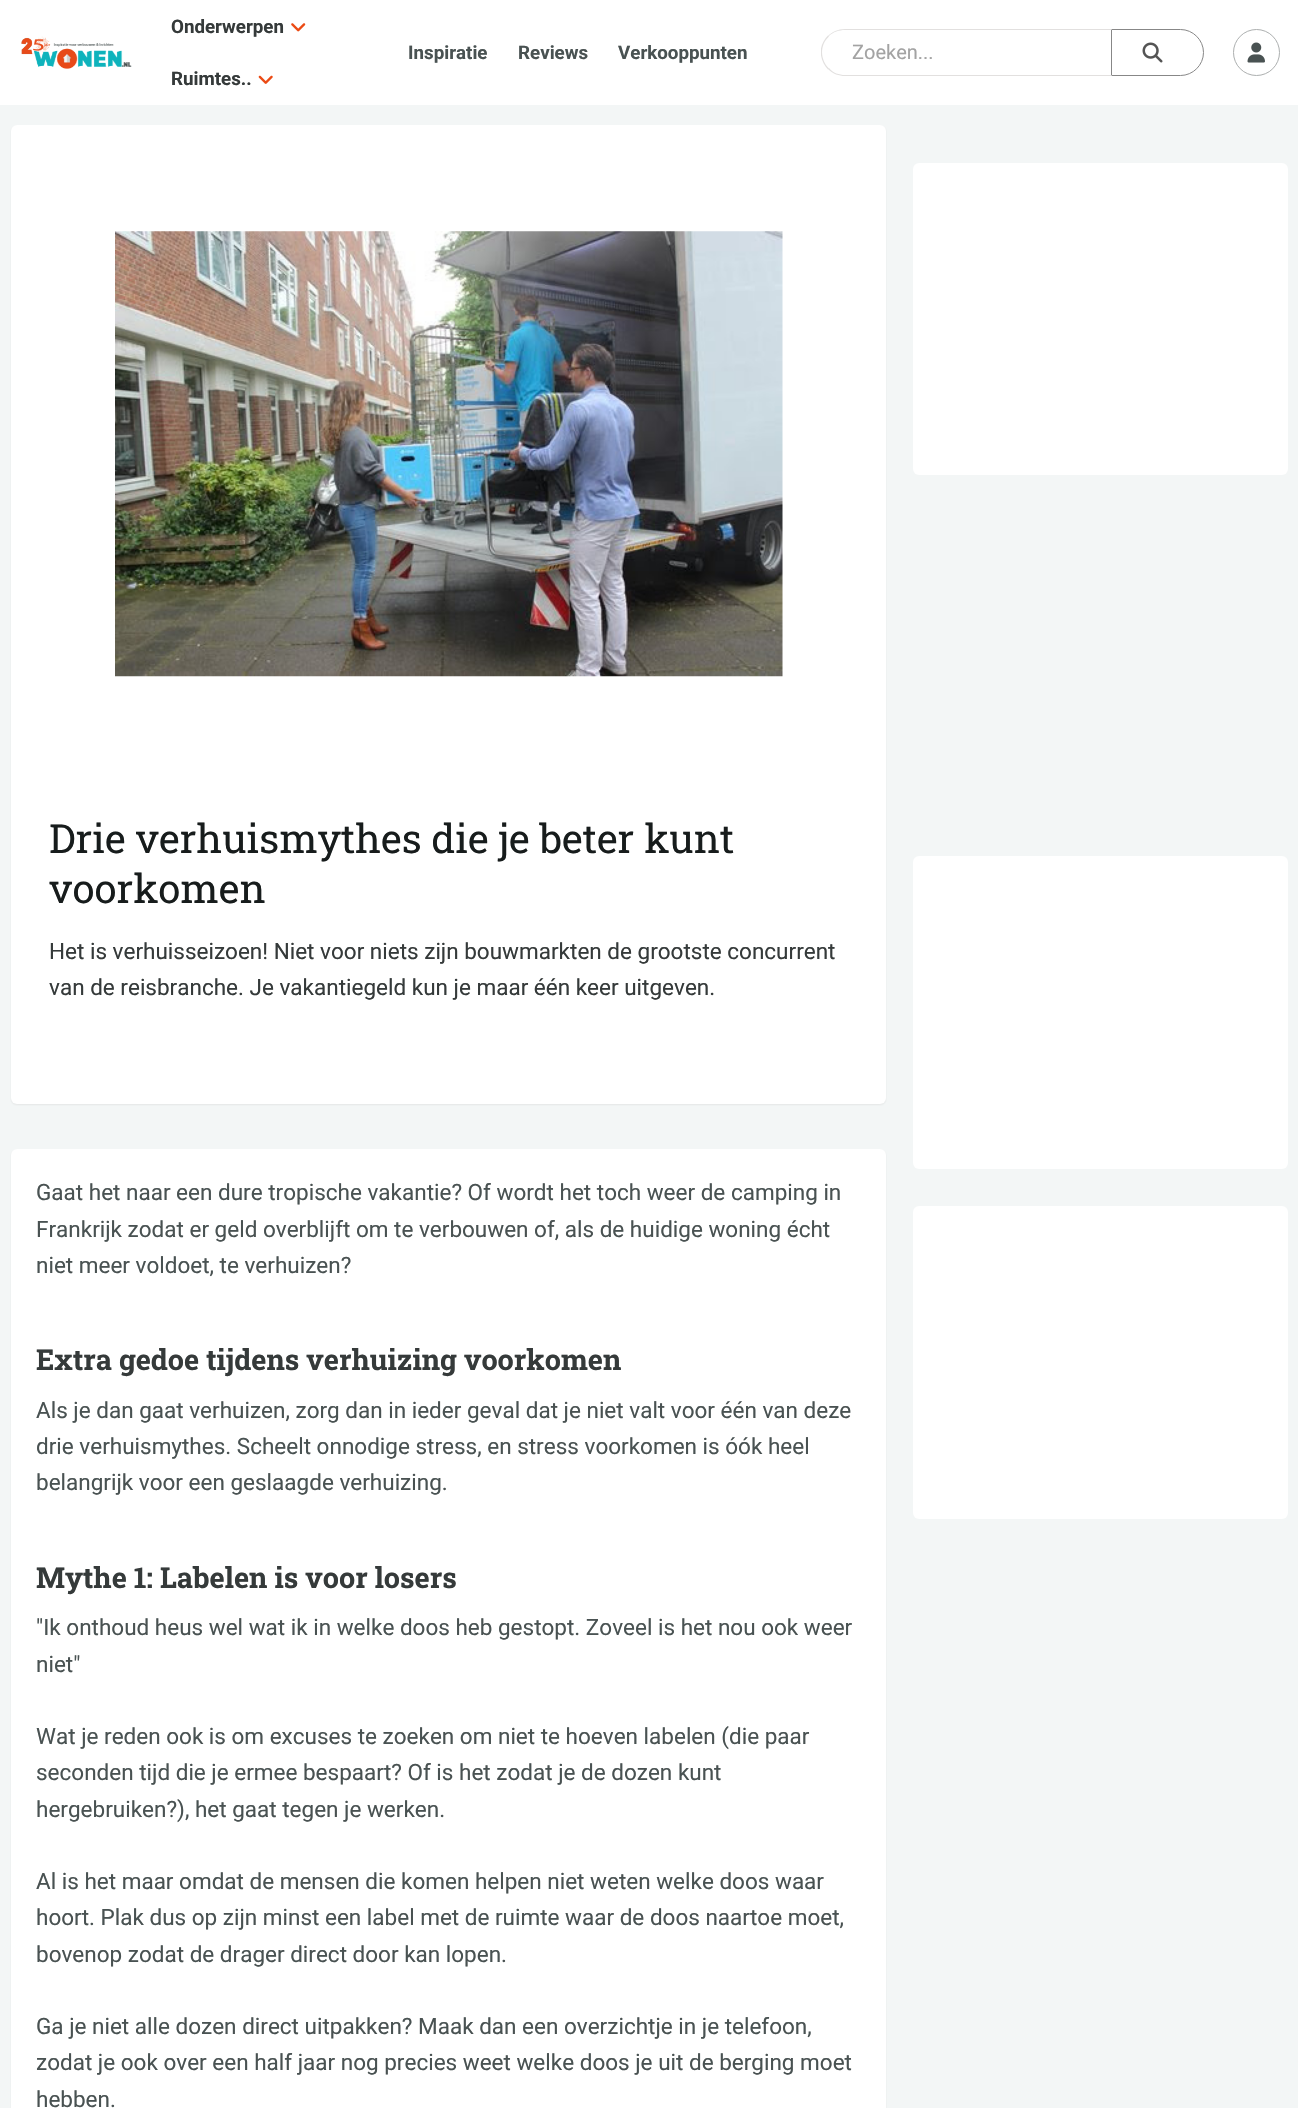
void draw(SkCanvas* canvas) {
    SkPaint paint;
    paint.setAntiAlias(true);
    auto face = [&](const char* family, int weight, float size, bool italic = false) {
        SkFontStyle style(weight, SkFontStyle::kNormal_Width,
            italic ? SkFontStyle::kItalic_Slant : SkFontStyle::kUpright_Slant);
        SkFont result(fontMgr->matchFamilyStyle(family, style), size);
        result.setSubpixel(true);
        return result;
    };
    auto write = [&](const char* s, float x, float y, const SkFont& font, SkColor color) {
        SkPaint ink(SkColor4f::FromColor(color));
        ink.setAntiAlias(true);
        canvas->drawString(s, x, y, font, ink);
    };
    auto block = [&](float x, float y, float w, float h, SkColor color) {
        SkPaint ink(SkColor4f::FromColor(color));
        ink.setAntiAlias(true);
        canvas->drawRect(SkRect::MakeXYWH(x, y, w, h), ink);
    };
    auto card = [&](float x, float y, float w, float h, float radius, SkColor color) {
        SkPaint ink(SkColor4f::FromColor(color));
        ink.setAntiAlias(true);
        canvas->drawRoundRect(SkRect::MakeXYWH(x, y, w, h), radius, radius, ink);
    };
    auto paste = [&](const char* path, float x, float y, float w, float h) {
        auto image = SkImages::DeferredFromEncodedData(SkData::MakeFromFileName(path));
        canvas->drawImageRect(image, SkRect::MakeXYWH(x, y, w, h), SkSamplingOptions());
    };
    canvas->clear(SkColorSetRGB(243, 246, 246));
    block(0, 0, 1298, 105, SK_ColorWHITE);
    paste("pic1.png", 21, 36, 111, 33);
    auto kFont1 = face("Roboto", 700, 18.75f);
    write("Onderwerpen", 171, 33, kFont1, SkColorSetRGB(53, 58, 58));
    paste("pic2.png", 291, 23, 15, 9);
    write("Ruimtes..", 171, 85, kFont1, SkColorSetRGB(53, 58, 58));
    paste("pic3.png", 258, 75, 15, 9);
    write("Inspiratie", 408, 59, kFont1, SkColorSetRGB(73, 82, 82));
    write("Reviews", 518, 59, kFont1, SkColorSetRGB(73, 82, 82));
    write("Verkooppunten", 618, 59, kFont1, SkColorSetRGB(73, 82, 82));
    paint.setStyle(SkPaint::kStroke_Style);
    paint.setStrokeWidth(1);
    paint.setColor(SkColorSetRGB(135, 135, 135));
    canvas->drawPath(SkPathBuilder().moveTo(1111.5f, 29.5f).lineTo(1180.5f, 29.5f).cubicTo(1193, 29.5f, 1203.5f, 40, 1203.5f, 52.5f).cubicTo(1203.5f, 65, 1193, 75.5f, 1180.5f, 75.5f).lineTo(1111.5f, 75.5f).close().detach(), paint);
    paint.setStyle(SkPaint::kFill_Style);
    paint.setColor(SkColorSetRGB(226, 224, 223));
    canvas->drawPath(SkPathBuilder().moveTo(845, 29).cubicTo(838, 29, 832, 32, 828, 36).lineTo(829, 36).cubicTo(833, 32, 839, 30, 845, 30).lineTo(1111, 30).lineTo(1112, 29).close().detach(), paint);
    canvas->drawPath(SkPathBuilder().moveTo(1112, 76).lineTo(845, 76).cubicTo(839, 76, 833, 74, 828, 69).lineTo(829, 68).cubicTo(833, 73, 839, 75, 845, 75).lineTo(1111, 75).close().detach(), paint);
    canvas->drawPath(SkPathBuilder().moveTo(821, 48.5f).cubicTo(822, 43.5f, 824.5f, 39, 828, 35.5f).lineTo(829, 36.5f).cubicTo(819.5f, 45, 820, 59.5f, 829, 68.5f).lineTo(828, 69.5f).cubicTo(824.5f, 66, 822, 61, 821, 55.5f).close().detach(), paint);
    auto kFont2 = face("Roboto", 400, 20);
    write("Zoeken...", 852, 59, kFont2, SkColorSetRGB(163, 163, 163));
    paste("pic4.png", 1142, 42, 21, 21);
    paint.setStyle(SkPaint::kStroke_Style);
    paint.setColor(SkColorSetRGB(172, 175, 175));
    canvas->drawCircle(1256.5f, 52.5f, 23, paint);
    paste("pic5.png", 1247, 42, 18, 21);
    paint.setStyle(SkPaint::kFill_Style);
    paint.setColor(SkColorSetARGB(18, 23, 28, 28));
    paint.setMaskFilter(SkMaskFilter::MakeBlur(kNormal_SkBlurStyle, 1));
    canvas->drawRoundRect(SkRect::MakeXYWH(11, 126, 875, 979), 6, 6, paint);
    paint.setMaskFilter(nullptr);
    card(11, 125, 875, 979, 6, SK_ColorWHITE);
    paste("pic6.png", 115, 231, 668, 446);
    auto kFont3 = face("Roboto Slab", 400, 40);
    write("Drie verhuismythes die je beter kunt", 49, 853, kFont3, SkColorSetRGB(23, 28, 28));
    write("voorkomen", 49, 903, kFont3, SkColorSetRGB(23, 28, 28));
    auto kFont4 = face("Roboto", 400, 22.5f);
    write("Het is verhuisseizoen! Niet voor niets zijn bouwmarkten de grootste concurrent", 49, 959, kFont4, SkColorSetRGB(53, 58, 58));
    write("van de reisbranche. Je vakantiegeld kun je maar één keer uitgeven.", 49, 995, kFont4, SkColorSetRGB(53, 58, 58));
    paint.setMaskFilter(SkMaskFilter::MakeBlur(kNormal_SkBlurStyle, 1));
    canvas->drawRoundRect(SkRect::MakeXYWH(11, 1150, 875, 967), 6, 6, paint);
    paint.setMaskFilter(nullptr);
    card(11, 1149, 875, 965, 6, SK_ColorWHITE);
    write("Gaat het naar een dure tropische vakantie? Of wordt het toch weer de camping in", 36, 1200, kFont4, SkColorSetRGB(73, 82, 82));
    write("Frankrijk zodat er geld overblijft om te verbouwen of, als de huidige woning écht", 36, 1237, kFont4, SkColorSetRGB(73, 82, 82));
    write("niet meer voldoet, te verhuizen?", 36, 1273, kFont4, SkColorSetRGB(73, 82, 82));
    auto kFont5 = face("Roboto Slab", 700, 28.75f);
    write("Extra gedoe tijdens verhuizing voorkomen", 36, 1370, kFont5, SkColorSetRGB(53, 58, 58));
    write("Als je dan gaat verhuizen, zorg dan in ieder geval dat je niet valt voor één van deze", 36, 1418, kFont4, SkColorSetRGB(73, 82, 82));
    write("drie verhuismythes. Scheelt onnodige stress, en stress voorkomen is óók heel", 36, 1454, kFont4, SkColorSetRGB(73, 82, 82));
    write("belangrijk voor een geslaagde verhuizing.", 36, 1490, kFont4, SkColorSetRGB(73, 82, 82));
    write("Mythe 1: Labelen is voor losers", 36, 1588, kFont5, SkColorSetRGB(53, 58, 58));
    write("\"Ik onthoud heus wel wat ik in welke doos heb gestopt. Zoveel is het nou ook weer", 36, 1635, kFont4, SkColorSetRGB(73, 82, 82));
    write("niet\"", 36, 1672, kFont4, SkColorSetRGB(73, 82, 82));
    write("Wat je reden ook is om excuses te zoeken om niet te hoeven labelen (die paar", 36, 1744, kFont4, SkColorSetRGB(73, 82, 82));
    write("seconden tijd die je ermee bespaart? Of is het zodat je de dozen kunt", 36, 1780, kFont4, SkColorSetRGB(73, 82, 82));
    write("hergebruiken?), het gaat tegen je werken.", 36, 1817, kFont4, SkColorSetRGB(73, 82, 82));
    write("Al is het maar omdat de mensen die komen helpen niet weten welke doos waar", 36, 1889, kFont4, SkColorSetRGB(73, 82, 82));
    write("hoort. Plak dus op zijn minst een label met de ruimte waar de doos naartoe moet,", 36, 1925, kFont4, SkColorSetRGB(73, 82, 82));
    write("bovenop zodat de drager direct door kan lopen.", 36, 1962, kFont4, SkColorSetRGB(73, 82, 82));
    write("Ga je niet alle dozen direct uitpakken? Maak dan een overzichtje in je telefoon,", 36, 2034, kFont4, SkColorSetRGB(73, 82, 82));
    write("zodat je ook over een half jaar nog precies weet welke doos je uit de berging moet", 36, 2070, kFont4, SkColorSetRGB(73, 82, 82));
    write("hebben.", 36, 2107, kFont4, SkColorSetRGB(73, 82, 82));
    card(913, 163, 375, 312, 6, SK_ColorWHITE);
    card(913, 856, 375, 313, 6, SK_ColorWHITE);
    card(913, 1206, 375, 313, 6, SK_ColorWHITE);
}
